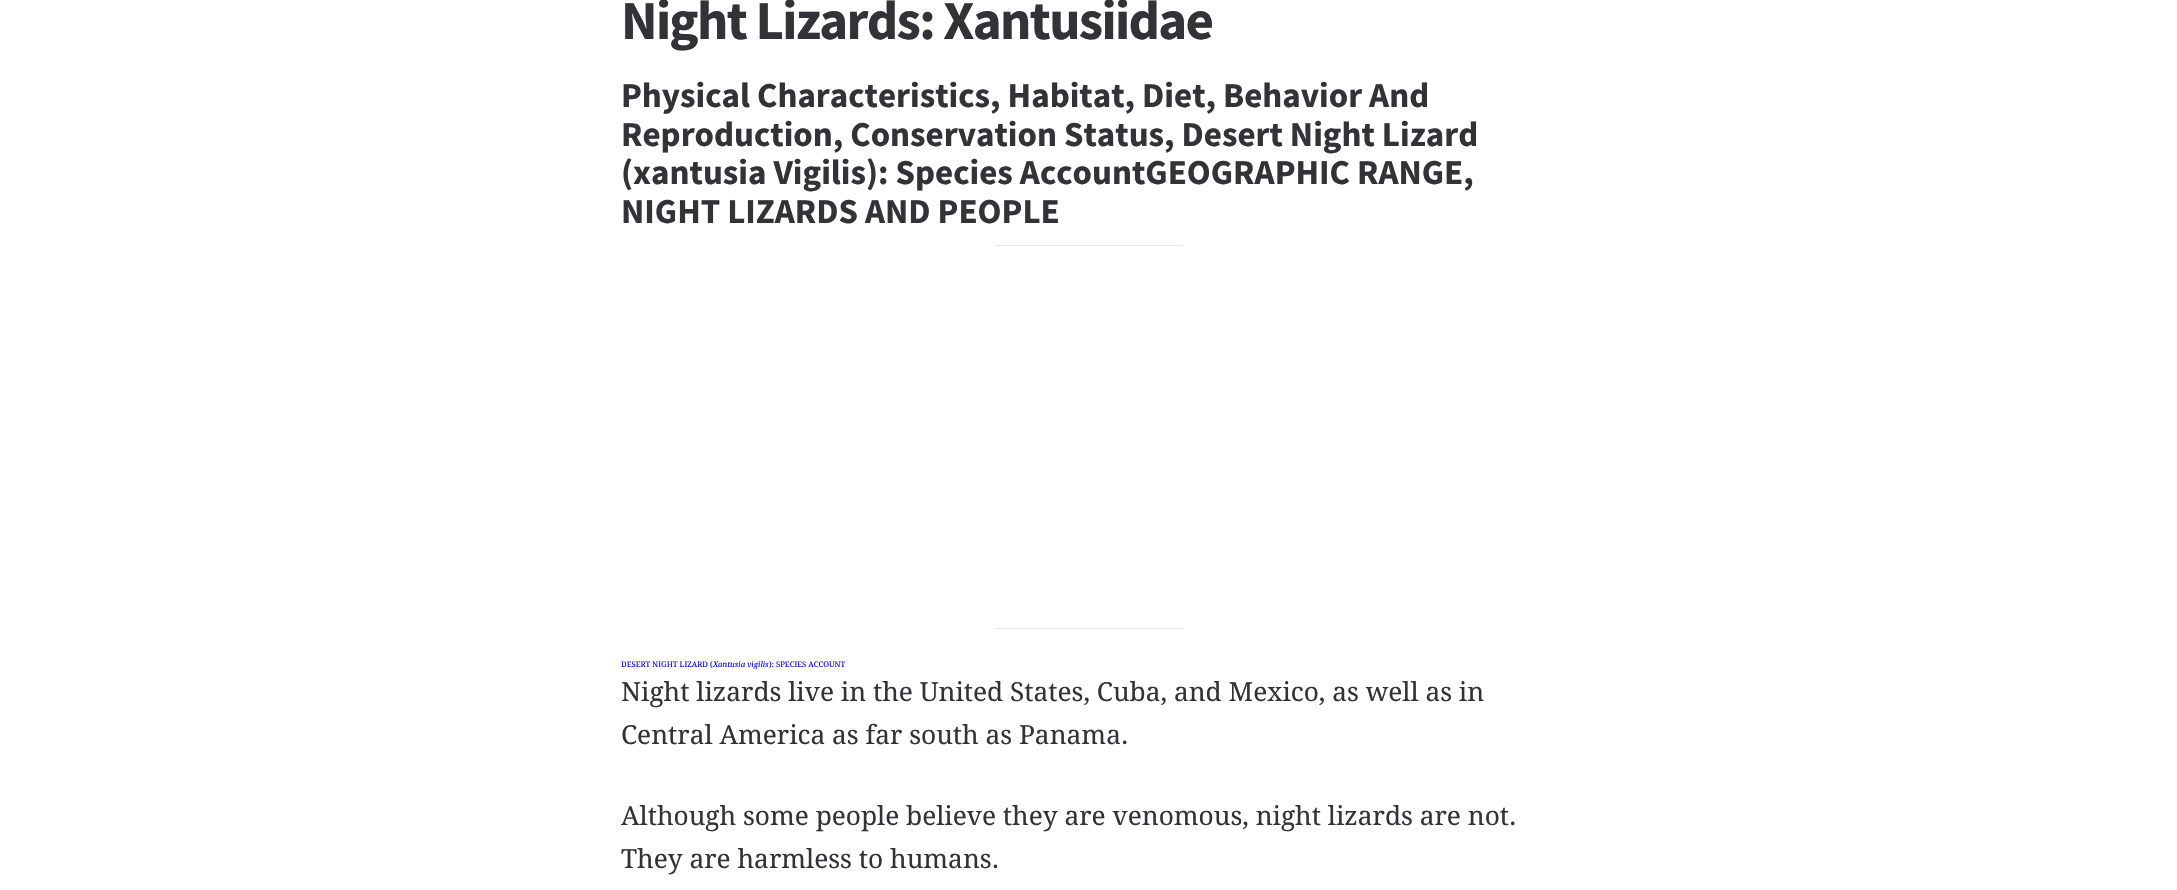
void draw(SkCanvas* canvas) {
    SkPaint paint;
    paint.setAntiAlias(true);
    auto face = [&](const char* family, int weight, float size, bool italic = false) {
        SkFontStyle style(weight, SkFontStyle::kNormal_Width,
            italic ? SkFontStyle::kItalic_Slant : SkFontStyle::kUpright_Slant);
        SkFont result(fontMgr->matchFamilyStyle(family, style), size);
        result.setSubpixel(true);
        return result;
    };
    auto write = [&](const char* s, float x, float y, const SkFont& font, SkColor color) {
        SkPaint ink(SkColor4f::FromColor(color));
        ink.setAntiAlias(true);
        canvas->drawString(s, x, y, font, ink);
    };
    auto writeSpaced = [&](const char* s, float x, float y, const SkFont& font, const SkPaint& ink, float letter, float word) {
        std::vector<SkGlyphID> glyphs(font.countText(s, strlen(s), SkTextEncoding::kUTF8));
        std::vector<float> xs(glyphs.size());
        font.textToGlyphs(s, strlen(s), SkTextEncoding::kUTF8, glyphs);
        font.getXPos(glyphs, xs, x);
        float extra = 0;
        for (size_t i = 0; i < glyphs.size(); i++) {
            xs[i] += extra;
            extra += letter + word * (glyphs[i] == font.unicharToGlyph(' '));
        }
        canvas->drawTextBlob(SkTextBlob::MakeFromPosHGlyphs(glyphs, xs, y, font), 0, 0, ink);
    };
    auto block = [&](float x, float y, float w, float h, SkColor color) {
        SkPaint ink(SkColor4f::FromColor(color));
        ink.setAntiAlias(true);
        canvas->drawRect(SkRect::MakeXYWH(x, y, w, h), ink);
    };
    canvas->clear(SK_ColorWHITE);
    auto kFont1 = face("Source Sans Pro", 700, 55);
    paint.setColor(SkColorSetRGB(51, 51, 55));
    writeSpaced("Night Lizards: Xantusiidae", 621, 39, kFont1, paint, -1.7f, 0);
    auto kFont2 = face("Source Sans Pro", 700, 35);
    write("Physical Characteristics, Habitat, Diet, Behavior And", 621, 107, kFont2, SkColorSetRGB(51, 51, 55));
    write("Reproduction, Conservation Status, Desert Night Lizard", 621, 146, kFont2, SkColorSetRGB(51, 51, 55));
    write("(xantusia Vigilis): Species AccountGEOGRAPHIC RANGE,", 621, 184, kFont2, SkColorSetRGB(51, 51, 55));
    write("NIGHT LIZARDS AND PEOPLE", 621, 223, kFont2, SkColorSetRGB(51, 51, 55));
    block(995, 245, 188, 1, SkColorSetRGB(232, 232, 232));
    block(995, 628, 188, 1, SkColorSetRGB(232, 232, 232));
    auto kFont3 = face("Droid Serif", 400, 7.75f);
    write("DESERT NIGHT LIZARD (", 621, 667, kFont3, SkColorSetRGB(0, 0, 238));
    auto kFont4 = face("Droid Serif", 400, 7.75f, true);
    write("Xantusia vigilis", 713, 667, kFont4, SkColorSetRGB(0, 0, 238));
    write("): SPECIES ACCOUNT", 769, 667, kFont3, SkColorSetRGB(0, 0, 238));
    auto kFont5 = face("Droid Serif", 400, 26.25f);
    write("Night lizards live in the United States, Cuba, and Mexico, as well as in", 621, 701, kFont5, SkColorSetRGB(51, 51, 55));
    write("Central America as far south as Panama.", 621, 744, kFont5, SkColorSetRGB(51, 51, 55));
    write("Although some people believe they are venomous, night lizards are not.", 621, 825, kFont5, SkColorSetRGB(51, 51, 55));
    write("They are harmless to humans.", 621, 868, kFont5, SkColorSetRGB(51, 51, 55));
}
